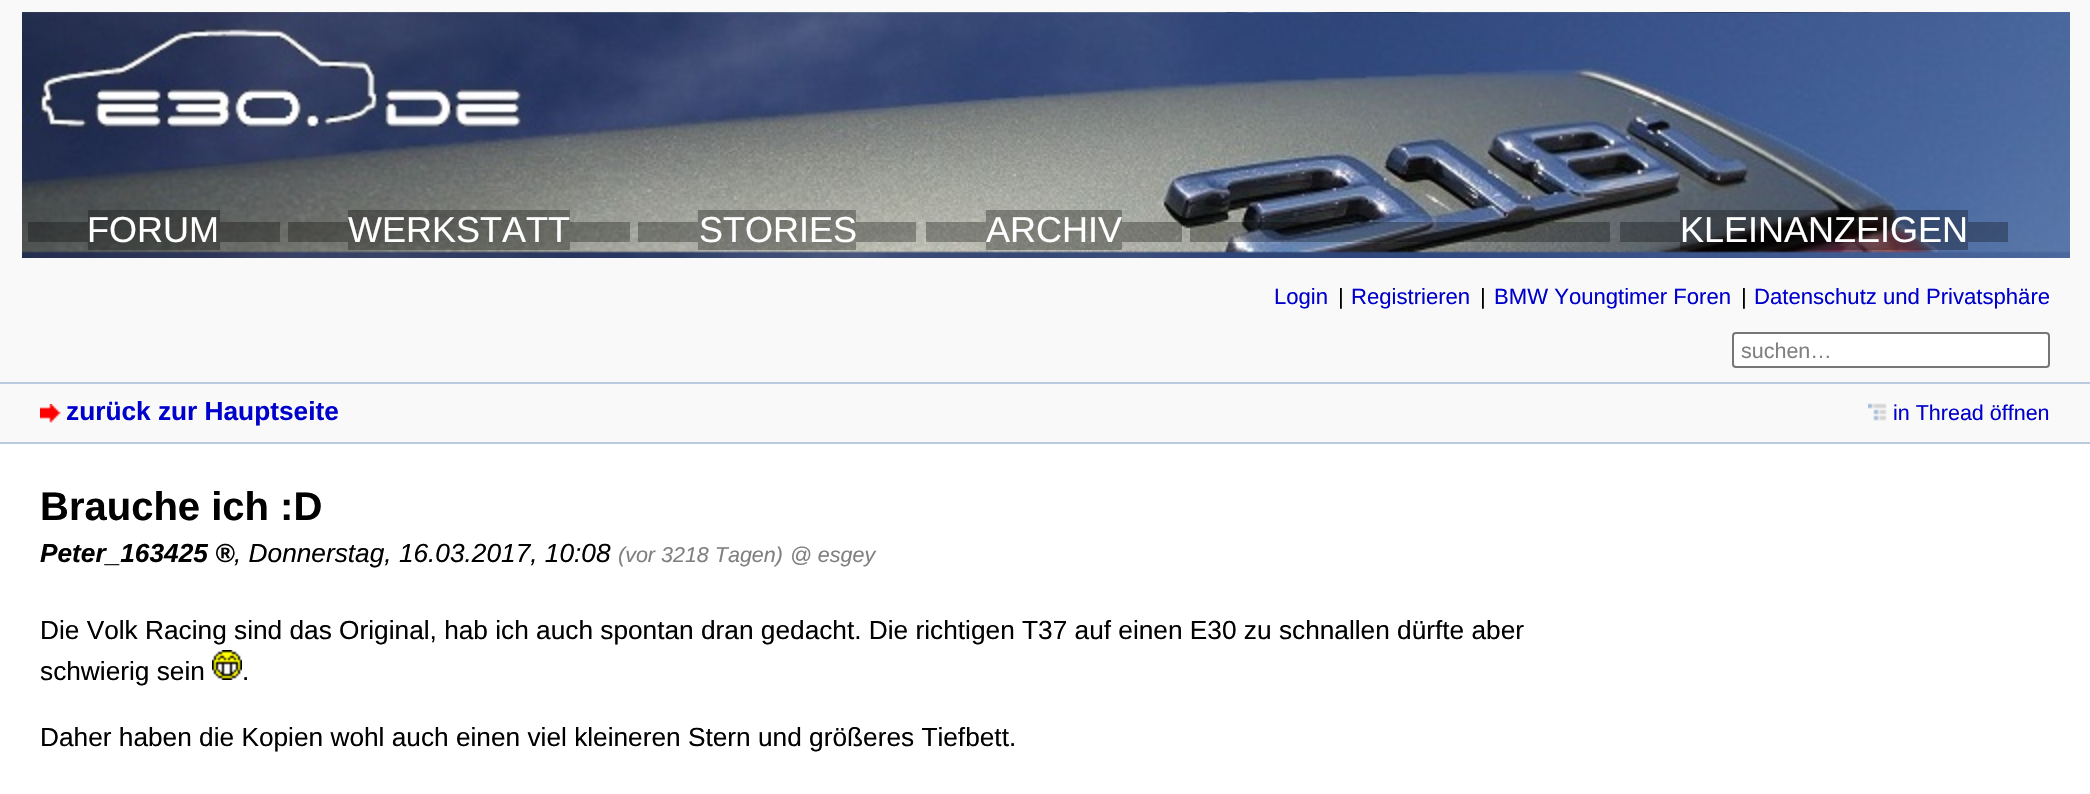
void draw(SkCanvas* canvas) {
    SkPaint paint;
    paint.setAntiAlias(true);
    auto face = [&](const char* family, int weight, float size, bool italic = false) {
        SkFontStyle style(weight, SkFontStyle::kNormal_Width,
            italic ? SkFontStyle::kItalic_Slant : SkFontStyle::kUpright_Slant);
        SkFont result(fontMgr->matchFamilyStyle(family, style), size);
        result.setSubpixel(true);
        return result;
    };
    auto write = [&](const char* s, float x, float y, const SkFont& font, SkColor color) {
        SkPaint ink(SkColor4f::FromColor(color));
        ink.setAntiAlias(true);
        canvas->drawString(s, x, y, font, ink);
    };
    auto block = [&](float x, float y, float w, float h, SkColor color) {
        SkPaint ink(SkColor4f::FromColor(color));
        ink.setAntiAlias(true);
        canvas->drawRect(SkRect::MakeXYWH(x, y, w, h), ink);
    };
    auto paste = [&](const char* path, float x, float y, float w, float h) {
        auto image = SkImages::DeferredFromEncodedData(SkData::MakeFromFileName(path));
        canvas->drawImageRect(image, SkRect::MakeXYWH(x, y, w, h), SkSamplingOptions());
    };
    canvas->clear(SkColorSetRGB(249, 249, 249));
    paste("pic1.png", 22, 12, 2048, 246);
    block(88, 210, 132, 40, SkColorSetARGB(77, 0, 0, 0));
    auto kFont1 = face("Liberation Sans", 400, 36);
    write("FORUM", 87, 242, kFont1, SK_ColorWHITE);
    block(28, 222, 60, 20, SkColorSetARGB(77, 0, 0, 0));
    block(220, 222, 60, 20, SkColorSetARGB(77, 0, 0, 0));
    block(348, 210, 222, 40, SkColorSetARGB(77, 0, 0, 0));
    write("WERKSTATT", 348, 242, kFont1, SK_ColorWHITE);
    block(288, 222, 60, 20, SkColorSetARGB(77, 0, 0, 0));
    block(570, 222, 60, 20, SkColorSetARGB(77, 0, 0, 0));
    block(698, 210, 158, 40, SkColorSetARGB(77, 0, 0, 0));
    write("STORIES", 699, 242, kFont1, SK_ColorWHITE);
    block(638, 222, 60, 20, SkColorSetARGB(77, 0, 0, 0));
    block(856, 222, 60, 20, SkColorSetARGB(77, 0, 0, 0));
    block(926, 222, 60, 20, SkColorSetARGB(77, 0, 0, 0));
    block(986, 210, 136, 40, SkColorSetARGB(77, 0, 0, 0));
    write("ARCHIV", 986, 242, kFont1, SK_ColorWHITE);
    block(1122, 222, 60, 20, SkColorSetARGB(77, 0, 0, 0));
    block(1190, 222, 360, 20, SkColorSetARGB(77, 0, 0, 0));
    block(1550, 222, 60, 20, SkColorSetARGB(77, 0, 0, 0));
    block(1680, 210, 288, 40, SkColorSetARGB(77, 0, 0, 0));
    write("KLEINANZEIGEN", 1680, 242, kFont1, SK_ColorWHITE);
    block(1620, 222, 60, 20, SkColorSetARGB(77, 0, 0, 0));
    block(1968, 222, 40, 20, SkColorSetARGB(77, 0, 0, 0));
    auto kFont2 = face("Liberation Sans", 400, 22.1f);
    write("Login", 1274, 304, kFont2, SkColorSetRGB(0, 0, 204));
    write("|", 1338, 304, kFont2, SK_ColorBLACK);
    write("Registrieren", 1351, 304, kFont2, SkColorSetRGB(0, 0, 204));
    write("|", 1480, 304, kFont2, SK_ColorBLACK);
    write("BMW Youngtimer Foren", 1494, 304, kFont2, SkColorSetRGB(0, 0, 204));
    write("|", 1741, 304, kFont2, SK_ColorBLACK);
    write("Datenschutz und Privatsphäre", 1754, 304, kFont2, SkColorSetRGB(0, 0, 204));
    paint.setColor(SK_ColorWHITE);
    canvas->drawRoundRect(SkRect::MakeXYWH(1733, 333, 316, 34), 3, 3, paint);
    paint.setStyle(SkPaint::kStroke_Style);
    paint.setStrokeWidth(2);
    paint.setColor(SkColorSetRGB(118, 118, 118));
    canvas->drawRoundRect(SkRect::MakeXYWH(1733, 333, 316, 34), 3, 3, paint);
    auto kFont3 = face("Liberation Sans", 400, 21.5f);
    write("suchen…", 1741, 358, kFont3, SkColorSetRGB(128, 128, 128));
    block(0, 382, 2090, 2, SkColorSetRGB(186, 203, 223));
    block(0, 442, 2090, 2, SkColorSetRGB(186, 203, 223));
    paste("pic2.png", 40, 404, 21, 19);
    auto kFont4 = face("Liberation Sans", 700, 26.25f);
    write("zurück zur Hauptseite", 66, 420, kFont4, SkColorSetRGB(0, 0, 204));
    paste("pic3.png", 1868, 403, 19, 18);
    write("in Thread öffnen", 1893, 420, kFont3, SkColorSetRGB(0, 0, 204));
    block(0, 444, 2090, 350, SK_ColorWHITE);
    auto kFont5 = face("Liberation Sans", 700, 40);
    write("Brauche ich :D", 40, 520, kFont5, SK_ColorBLACK);
    auto kFont6 = face("Liberation Sans", 700, 26.25f, true);
    write("Peter_163425 ®", 40, 562, kFont6, SK_ColorBLACK);
    auto kFont7 = face("Liberation Sans", 400, 26.25f, true);
    write(", Donnerstag, 16.03.2017, 10:08", 234, 562, kFont7, SK_ColorBLACK);
    auto kFont8 = face("Liberation Sans", 400, 21.5f, true);
    write("(vor 3218 Tagen)", 618, 562, kFont8, SkColorSetRGB(128, 128, 128));
    write("@ esgey", 790, 562, kFont8, SkColorSetRGB(128, 128, 128));
    auto kFont9 = face("Liberation Sans", 400, 26.25f);
    write("Die Volk Racing sind das Original, hab ich auch spontan dran gedacht. Die richtigen T37 auf einen E30 zu schnallen dürfte aber", 40, 639, kFont9, SK_ColorBLACK);
    write("schwierig sein", 40, 680, kFont9, SK_ColorBLACK);
    paste("pic4.png", 212, 650, 30, 30);
    write(".", 242, 680, kFont9, SK_ColorBLACK);
    write("Daher haben die Kopien wohl auch einen viel kleineren Stern und größeres Tiefbett.", 40, 746, kFont9, SK_ColorBLACK);
}
